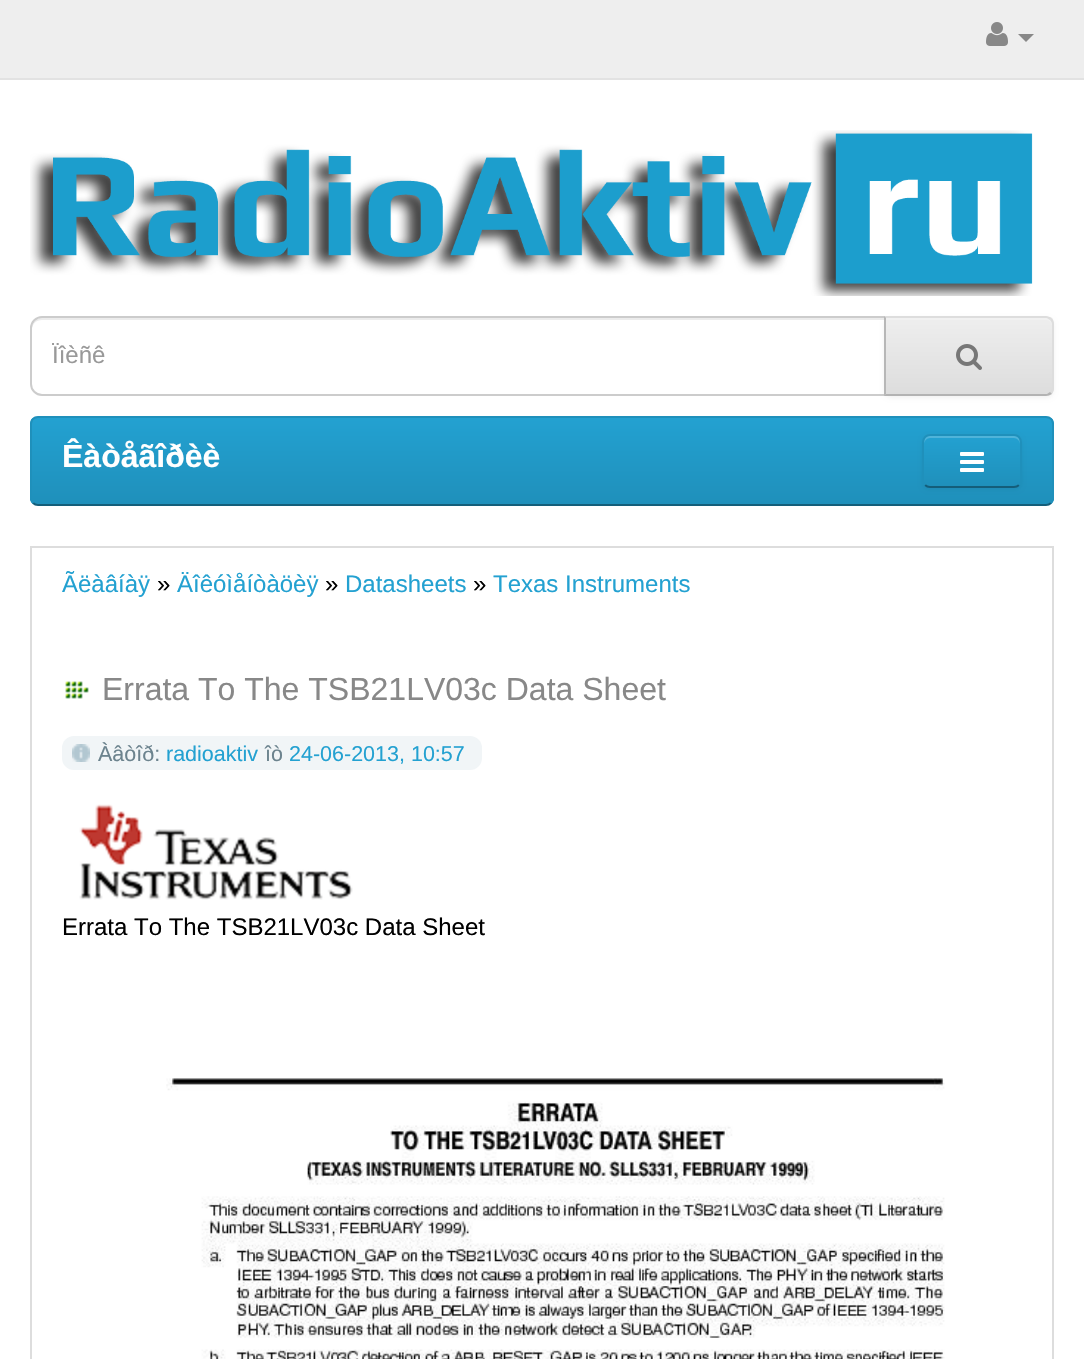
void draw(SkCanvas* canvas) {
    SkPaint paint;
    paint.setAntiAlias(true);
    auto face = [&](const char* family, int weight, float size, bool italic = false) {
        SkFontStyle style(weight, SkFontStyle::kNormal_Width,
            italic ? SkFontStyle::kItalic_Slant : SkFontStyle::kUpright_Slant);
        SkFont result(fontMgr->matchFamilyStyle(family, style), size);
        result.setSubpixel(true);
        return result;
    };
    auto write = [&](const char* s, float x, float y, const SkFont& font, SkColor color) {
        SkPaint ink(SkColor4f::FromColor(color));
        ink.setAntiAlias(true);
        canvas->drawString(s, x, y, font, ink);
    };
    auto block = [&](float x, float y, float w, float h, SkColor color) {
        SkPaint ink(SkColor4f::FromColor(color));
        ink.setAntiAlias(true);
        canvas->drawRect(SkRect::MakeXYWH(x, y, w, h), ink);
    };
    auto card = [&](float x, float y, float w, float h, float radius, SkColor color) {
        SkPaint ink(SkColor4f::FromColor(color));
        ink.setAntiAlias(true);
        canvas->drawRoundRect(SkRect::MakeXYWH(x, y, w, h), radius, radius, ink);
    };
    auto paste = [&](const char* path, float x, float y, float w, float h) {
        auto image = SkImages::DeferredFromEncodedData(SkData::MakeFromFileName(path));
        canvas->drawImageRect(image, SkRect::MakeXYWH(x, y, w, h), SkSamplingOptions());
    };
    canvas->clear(SK_ColorWHITE);
    block(0, 0, 1084, 78, SkColorSetRGB(238, 238, 238));
    block(0, 78, 1084, 2, SkColorSetRGB(226, 226, 226));
    paste("pic1.png", 986, 22, 22, 24);
    paint.setColor(SkColorSetRGB(136, 136, 136));
    canvas->drawPath(SkPathBuilder().moveTo(1018, 34).lineTo(1034, 34).lineTo(1026, 42).close().detach(), paint);
    paste("pic2.png", 30, 130, 1003, 166);
    paint.setColor(SkColorSetRGB(236, 236, 236));
    canvas->drawPath(SkPathBuilder().moveTo(42, 320).lineTo(884, 320).lineTo(884, 318).lineTo(42, 318).cubicTo(35, 318, 32, 324, 32, 330).cubicTo(32, 324, 36, 320, 42, 320).close().detach(), paint);
    paint.setStyle(SkPaint::kStroke_Style);
    paint.setStrokeWidth(2);
    paint.setColor(SkColorSetRGB(204, 204, 204));
    canvas->drawPath(SkPathBuilder().moveTo(42, 317).lineTo(885, 317).lineTo(885, 395).lineTo(42, 395).cubicTo(36, 395, 31, 390, 31, 384).lineTo(31, 328).cubicTo(31, 322, 36, 317, 42, 317).close().detach(), paint);
    auto kFont1 = face("Liberation Sans", 400, 24);
    write("Ïîèñê", 52, 363, kFont1, SkColorSetRGB(153, 153, 153));
    paint.setStyle(SkPaint::kFill_Style);
    paint.setColor(SkColorSetARGB(13, 0, 0, 0));
    paint.setMaskFilter(SkMaskFilter::MakeBlur(kNormal_SkBlurStyle, 2));
    canvas->drawRoundRect(SkRect::MakeXYWH(884, 318, 170, 80), 8, 8, paint);
    paint.setMaskFilter(nullptr);
    canvas->save();
    canvas->clipPath(SkPathBuilder().moveTo(884, 316).lineTo(1046, 316).cubicTo(1050.5f, 316, 1054, 319.5f, 1054, 324).lineTo(1054, 388).cubicTo(1054, 392.5f, 1050.5f, 396, 1046, 396).lineTo(884, 396).close().detach(), true);
    {
        const SkColor colors[] = {SkColorSetRGB(238, 238, 238), SkColorSetRGB(221, 221, 221)};
        const float stops[] = {0, 1};
        const SkPoint ends[] = {{969, 318}, {969, 394}};
        paint.setShader(SkGradientShader::MakeLinear(ends, colors, stops, 2, SkTileMode::kClamp));
        paint.setAlpha(255);
    }
    canvas->drawRect(SkRect::MakeXYWH(886, 318, 168, 76), paint);
    canvas->restore();
    paint.setShader(nullptr);
    paint.setColor(SkColorSetRGB(241, 241, 241));
    canvas->drawPath(SkPathBuilder().moveTo(886, 320).lineTo(1046, 320).cubicTo(1049, 320, 1052, 323, 1052, 326).lineTo(1052, 324).cubicTo(1052, 321, 1049, 318, 1046, 318).lineTo(886, 318).close().detach(), paint);
    paint.setColor(SkColorSetRGB(221, 221, 221));
    canvas->drawPath(SkPathBuilder().moveTo(884, 316).lineTo(886, 318).lineTo(1047, 318).lineTo(1050, 320).lineTo(1052, 318).cubicTo(1050, 317, 1048, 316, 1046, 316).close().detach(), paint);
    canvas->drawPath(SkPathBuilder().moveTo(1054, 388).lineTo(1054, 324).cubicTo(1054, 322, 1053, 320, 1052, 318).lineTo(1050, 320).cubicTo(1051, 321, 1052, 322, 1052, 324).lineTo(1052, 388).cubicTo(1052, 390, 1051, 391, 1050, 392).lineTo(1052, 394).cubicTo(1053, 392, 1054, 390, 1054, 388).close().detach(), paint);
    paint.setColor(SkColorSetRGB(179, 179, 179));
    canvas->drawPath(SkPathBuilder().moveTo(1046, 396).cubicTo(1048, 396, 1050, 395, 1052, 394).lineTo(1050, 392).lineTo(1047, 394).lineTo(886, 394).lineTo(884, 396).close().detach(), paint);
    paint.setColor(SkColorSetRGB(183, 183, 183));
    canvas->drawPath(SkPathBuilder().moveTo(884, 316).lineTo(884, 396).lineTo(886, 394).lineTo(886, 318).close().detach(), paint);
    paste("pic3.png", 956, 344, 26, 26);
    canvas->save();
    canvas->clipPath(SkPathBuilder().moveTo(38, 416).lineTo(1046, 416).cubicTo(1050.5f, 416, 1054, 419.5f, 1054, 424).lineTo(1054, 498).cubicTo(1054, 502.5f, 1050.5f, 506, 1046, 506).lineTo(38, 506).cubicTo(33.5f, 506, 30, 502.5f, 30, 498).lineTo(30, 424).cubicTo(30, 419.5f, 33.5f, 416, 38, 416).close().detach(), true);
    {
        const SkColor colors[] = {SkColorSetRGB(35, 161, 209), SkColorSetRGB(31, 144, 187)};
        const float stops[] = {0, 1};
        const SkPoint ends[] = {{542, 418}, {542, 504}};
        paint.setShader(SkGradientShader::MakeLinear(ends, colors, stops, 2, SkTileMode::kClamp));
        paint.setAlpha(255);
    }
    canvas->drawRect(SkRect::MakeXYWH(30, 418, 1024, 86), paint);
    canvas->restore();
    paint.setStyle(SkPaint::kStroke_Style);
    paint.setShader(nullptr);
    paint.setColor(SkColorSetRGB(20, 94, 122));
    canvas->drawPath(SkPathBuilder().moveTo(1051, 503).cubicTo(1049.5f, 504.5f, 1048, 505, 1046, 505).lineTo(38, 505).cubicTo(36, 505, 34.5f, 504.5f, 33, 503).detach(), paint);
    paint.setColor(SkColorSetRGB(31, 144, 187));
    canvas->drawPath(SkPathBuilder().moveTo(33, 503).lineTo(31, 499.5f).lineTo(31, 423.5f).lineTo(32, 420).cubicTo(33.5f, 418, 35.5f, 417, 38, 417).lineTo(1046, 417).cubicTo(1048.5f, 417, 1050.5f, 418, 1052, 420).lineTo(1053, 423.5f).lineTo(1053, 499.5f).lineTo(1051, 503).detach(), paint);
    auto kFont2 = face("Liberation Sans", 700, 32);
    write("Êàòåãîðèè", 62, 467, kFont2, SK_ColorWHITE);
    paint.setStyle(SkPaint::kFill_Style);
    paint.setColor(SkColorSetARGB(13, 0, 0, 0));
    paint.setMaskFilter(SkMaskFilter::MakeBlur(kNormal_SkBlurStyle, 2));
    canvas->drawRoundRect(SkRect::MakeXYWH(922, 436, 100, 54), 8, 8, paint);
    paint.setMaskFilter(nullptr);
    canvas->save();
    canvas->clipPath(SkPathBuilder().moveTo(930, 434).lineTo(1014, 434).cubicTo(1018.5f, 434, 1022, 437.5f, 1022, 442).lineTo(1022, 480).cubicTo(1022, 484.5f, 1018.5f, 488, 1014, 488).lineTo(930, 488).cubicTo(925.5f, 488, 922, 484.5f, 922, 480).lineTo(922, 442).cubicTo(922, 437.5f, 925.5f, 434, 930, 434).close().detach(), true);
    {
        const SkColor colors[] = {SkColorSetRGB(35, 161, 209), SkColorSetRGB(31, 144, 187)};
        const float stops[] = {0, 1};
        const SkPoint ends[] = {{972, 436}, {972, 486}};
        paint.setShader(SkGradientShader::MakeLinear(ends, colors, stops, 2, SkTileMode::kClamp));
        paint.setAlpha(255);
    }
    canvas->drawRect(SkRect::MakeXYWH(922, 436, 100, 50), paint);
    canvas->restore();
    paint.setShader(nullptr);
    paint.setColor(SkColorSetARGB(51, 255, 255, 255));
    canvas->drawPath(SkPathBuilder().moveTo(930, 438).lineTo(1014, 438).cubicTo(1017, 438, 1020, 441, 1020, 444).cubicTo(1020, 432, 1009, 436, 1000, 436).lineTo(944, 436).cubicTo(935, 436, 924, 432, 924, 444).cubicTo(924, 441, 927, 438, 930, 438).close().detach(), paint);
    paint.setStyle(SkPaint::kStroke_Style);
    paint.setColor(SkColorSetRGB(20, 94, 122));
    canvas->drawPath(SkPathBuilder().moveTo(1019, 485).cubicTo(1017.5f, 486.5f, 1016, 487, 1014, 487).lineTo(930, 487).cubicTo(928, 487, 926.5f, 486.5f, 925, 485).detach(), paint);
    paint.setColor(SkColorSetRGB(31, 144, 187));
    canvas->drawPath(SkPathBuilder().moveTo(925, 485).cubicTo(923.5f, 483.5f, 923, 482, 923, 480).lineTo(923, 442).cubicTo(923, 440, 923.5f, 438.5f, 925, 437).cubicTo(926.5f, 435.5f, 928, 435, 930, 435).lineTo(1014, 435).cubicTo(1016, 435, 1017.5f, 435.5f, 1019, 437).cubicTo(1020.5f, 438.5f, 1021, 440, 1021, 442).lineTo(1021, 480).cubicTo(1021, 482, 1020.5f, 483.5f, 1019, 485).detach(), paint);
    paste("pic4.png", 960, 452, 24, 20);
    paint.setColor(SkColorSetRGB(221, 221, 221));
    canvas->drawRect(SkRect::MakeXYWH(31, 547, 1022, 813), paint);
    write("Ãëàâíàÿ", 62, 592, kFont1, SkColorSetRGB(35, 161, 209));
    write("»", 157, 592, kFont1, SK_ColorBLACK);
    write("Äîêóìåíòàöèÿ", 177, 592, kFont1, SkColorSetRGB(35, 161, 209));
    write("»", 325, 592, kFont1, SK_ColorBLACK);
    write("Datasheets", 345, 592, kFont1, SkColorSetRGB(35, 161, 209));
    write("»", 473, 592, kFont1, SK_ColorBLACK);
    write("Texas Instruments", 493, 592, kFont1, SkColorSetRGB(35, 161, 209));
    paste("pic5.png", 65, 681, 24, 18);
    auto kFont3 = face("Liberation Sans", 400, 32);
    write("Errata To The TSB21LV03c Data Sheet", 102, 700, kFont3, SkColorSetRGB(136, 136, 136));
    card(62, 736, 420, 34, 12, SkColorSetRGB(241, 245, 247));
    paste("pic6.png", 72, 744, 18, 18);
    auto kFont4 = face("Liberation Sans", 400, 21.5f);
    write("Àâòîð:", 98, 761, kFont4, SkColorSetRGB(108, 131, 142));
    write("radioaktiv", 166, 761, kFont4, SkColorSetRGB(35, 161, 209));
    write("îò", 265, 761, kFont4, SkColorSetRGB(108, 131, 142));
    write("24-06-2013, 10:57", 289, 761, kFont4, SkColorSetRGB(35, 161, 209));
    paste("pic7.png", 79, 804, 274, 96);
    write("Errata To The TSB21LV03c Data Sheet", 62, 935, kFont1, SK_ColorBLACK);
    paste("pic8.png", 166, 1078, 779, 281);
}
